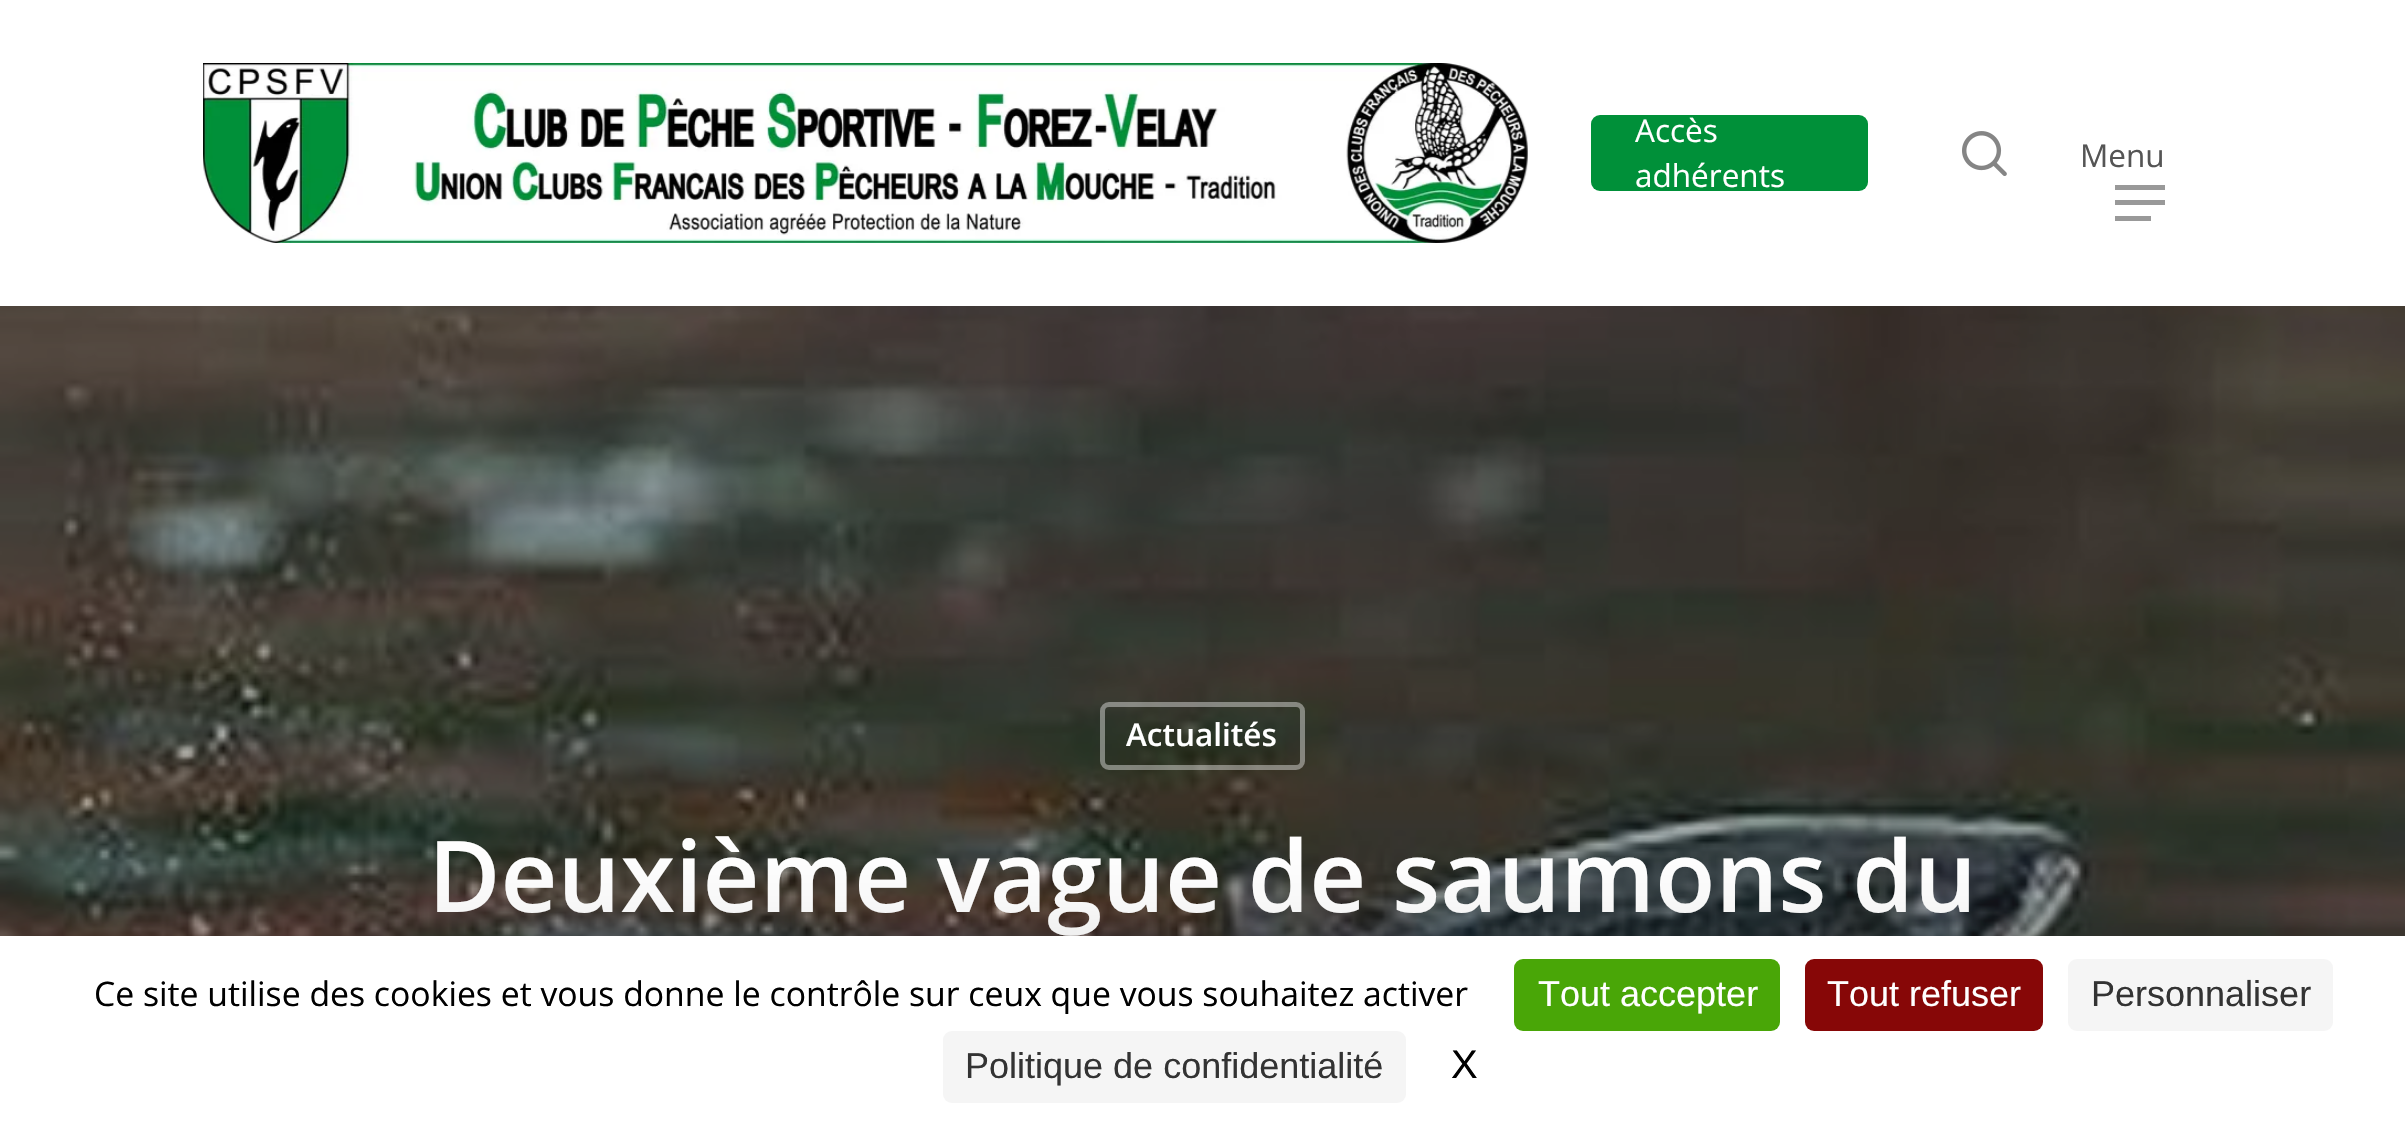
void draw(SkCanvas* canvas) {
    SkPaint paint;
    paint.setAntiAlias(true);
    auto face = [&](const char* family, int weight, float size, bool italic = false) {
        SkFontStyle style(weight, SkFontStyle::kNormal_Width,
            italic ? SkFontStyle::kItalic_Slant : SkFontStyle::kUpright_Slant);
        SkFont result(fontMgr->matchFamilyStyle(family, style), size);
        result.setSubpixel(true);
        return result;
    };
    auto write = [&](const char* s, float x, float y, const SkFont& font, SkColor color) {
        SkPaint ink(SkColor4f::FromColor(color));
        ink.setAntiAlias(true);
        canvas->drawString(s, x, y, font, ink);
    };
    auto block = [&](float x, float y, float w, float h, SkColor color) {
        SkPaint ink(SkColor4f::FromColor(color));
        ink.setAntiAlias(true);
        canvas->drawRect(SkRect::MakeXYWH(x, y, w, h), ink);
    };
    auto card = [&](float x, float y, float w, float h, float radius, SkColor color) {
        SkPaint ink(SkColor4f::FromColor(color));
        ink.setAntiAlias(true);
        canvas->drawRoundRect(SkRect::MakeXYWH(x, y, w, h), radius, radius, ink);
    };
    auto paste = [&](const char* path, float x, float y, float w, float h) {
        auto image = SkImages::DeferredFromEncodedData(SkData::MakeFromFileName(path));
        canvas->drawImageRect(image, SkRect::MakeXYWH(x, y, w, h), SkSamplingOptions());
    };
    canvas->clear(SK_ColorWHITE);
    paste("pic1.png", 203, 63, 1325, 180);
    card(1591, 115, 277, 76, 9, SkColorSetRGB(0, 144, 57));
    auto kFont1 = face("Open Sans", 400, 31.5f);
    write("Accès", 1635, 142, kFont1, SK_ColorWHITE);
    write("adhérents", 1635, 187, kFont1, SK_ColorWHITE);
    paste("pic2.png", 1962, 131, 45, 45);
    write("Menu", 2080, 167, kFont1, SkColorSetRGB(85, 85, 85));
    block(2115, 185, 50, 5, SkColorSetRGB(153, 153, 153));
    block(2115, 216, 36, 5, SkColorSetRGB(153, 153, 153));
    block(2115, 200, 50, 5, SkColorSetRGB(153, 153, 153));
    paste("pic3.png", 0, 306, 2405, 630);
    paint.setStyle(SkPaint::kStroke_Style);
    paint.setStrokeWidth(5);
    paint.setColor(SkColorSetARGB(102, 255, 255, 255));
    canvas->drawRoundRect(SkRect::MakeXYWH(1102.5f, 704.5f, 200, 63), 6.5f, 6.5f, paint);
    auto kFont2 = face("Open Sans", 600, 31.5f);
    write("Actualités", 1126, 746, kFont2, SK_ColorWHITE);
    auto kFont3 = face("Open Sans", 600, 99);
    write("Deuxième vague de saumons du", 428, 912, kFont3, SK_ColorWHITE);
    paint.setStyle(SkPaint::kFill_Style);
    paint.setColor(SkColorSetARGB(64, 0, 0, 0));
    paint.setMaskFilter(SkMaskFilter::MakeBlur(kNormal_SkBlurStyle, 67.5f));
    canvas->drawRect(SkRect::MakeXYWH(0, 981, 2405, 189), paint);
    paint.setMaskFilter(nullptr);
    block(0, 936, 2405, 189, SK_ColorWHITE);
    auto kFont4 = face("Open Sans", 400, 33.75f);
    write("Ce site utilise des cookies et vous donne le contrôle sur ceux que vous souhaitez activer", 94, 1006, kFont4, SK_ColorBLACK);
    card(1514, 959, 266, 72, 9, SkColorSetRGB(73, 166, 7));
    auto kFont5 = face("Liberation Sans", 400, 36);
    write("Tout accepter", 1538, 1006, kFont5, SK_ColorWHITE);
    card(1805, 959, 238, 72, 9, SkColorSetRGB(135, 7, 7));
    write("Tout refuser", 1827, 1006, kFont5, SK_ColorWHITE);
    card(2068, 959, 265, 72, 9, SkColorSetRGB(245, 245, 245));
    write("Personnaliser", 2091, 1006, kFont5, SkColorSetRGB(51, 51, 51));
    card(943, 1031, 463, 72, 9, SkColorSetRGB(245, 245, 245));
    write("Politique de confidentialité", 965, 1078, kFont5, SkColorSetRGB(51, 51, 51));
    auto kFont6 = face("Liberation Sans", 400, 40);
    write("X", 1451, 1078, kFont6, SK_ColorBLACK);
}
